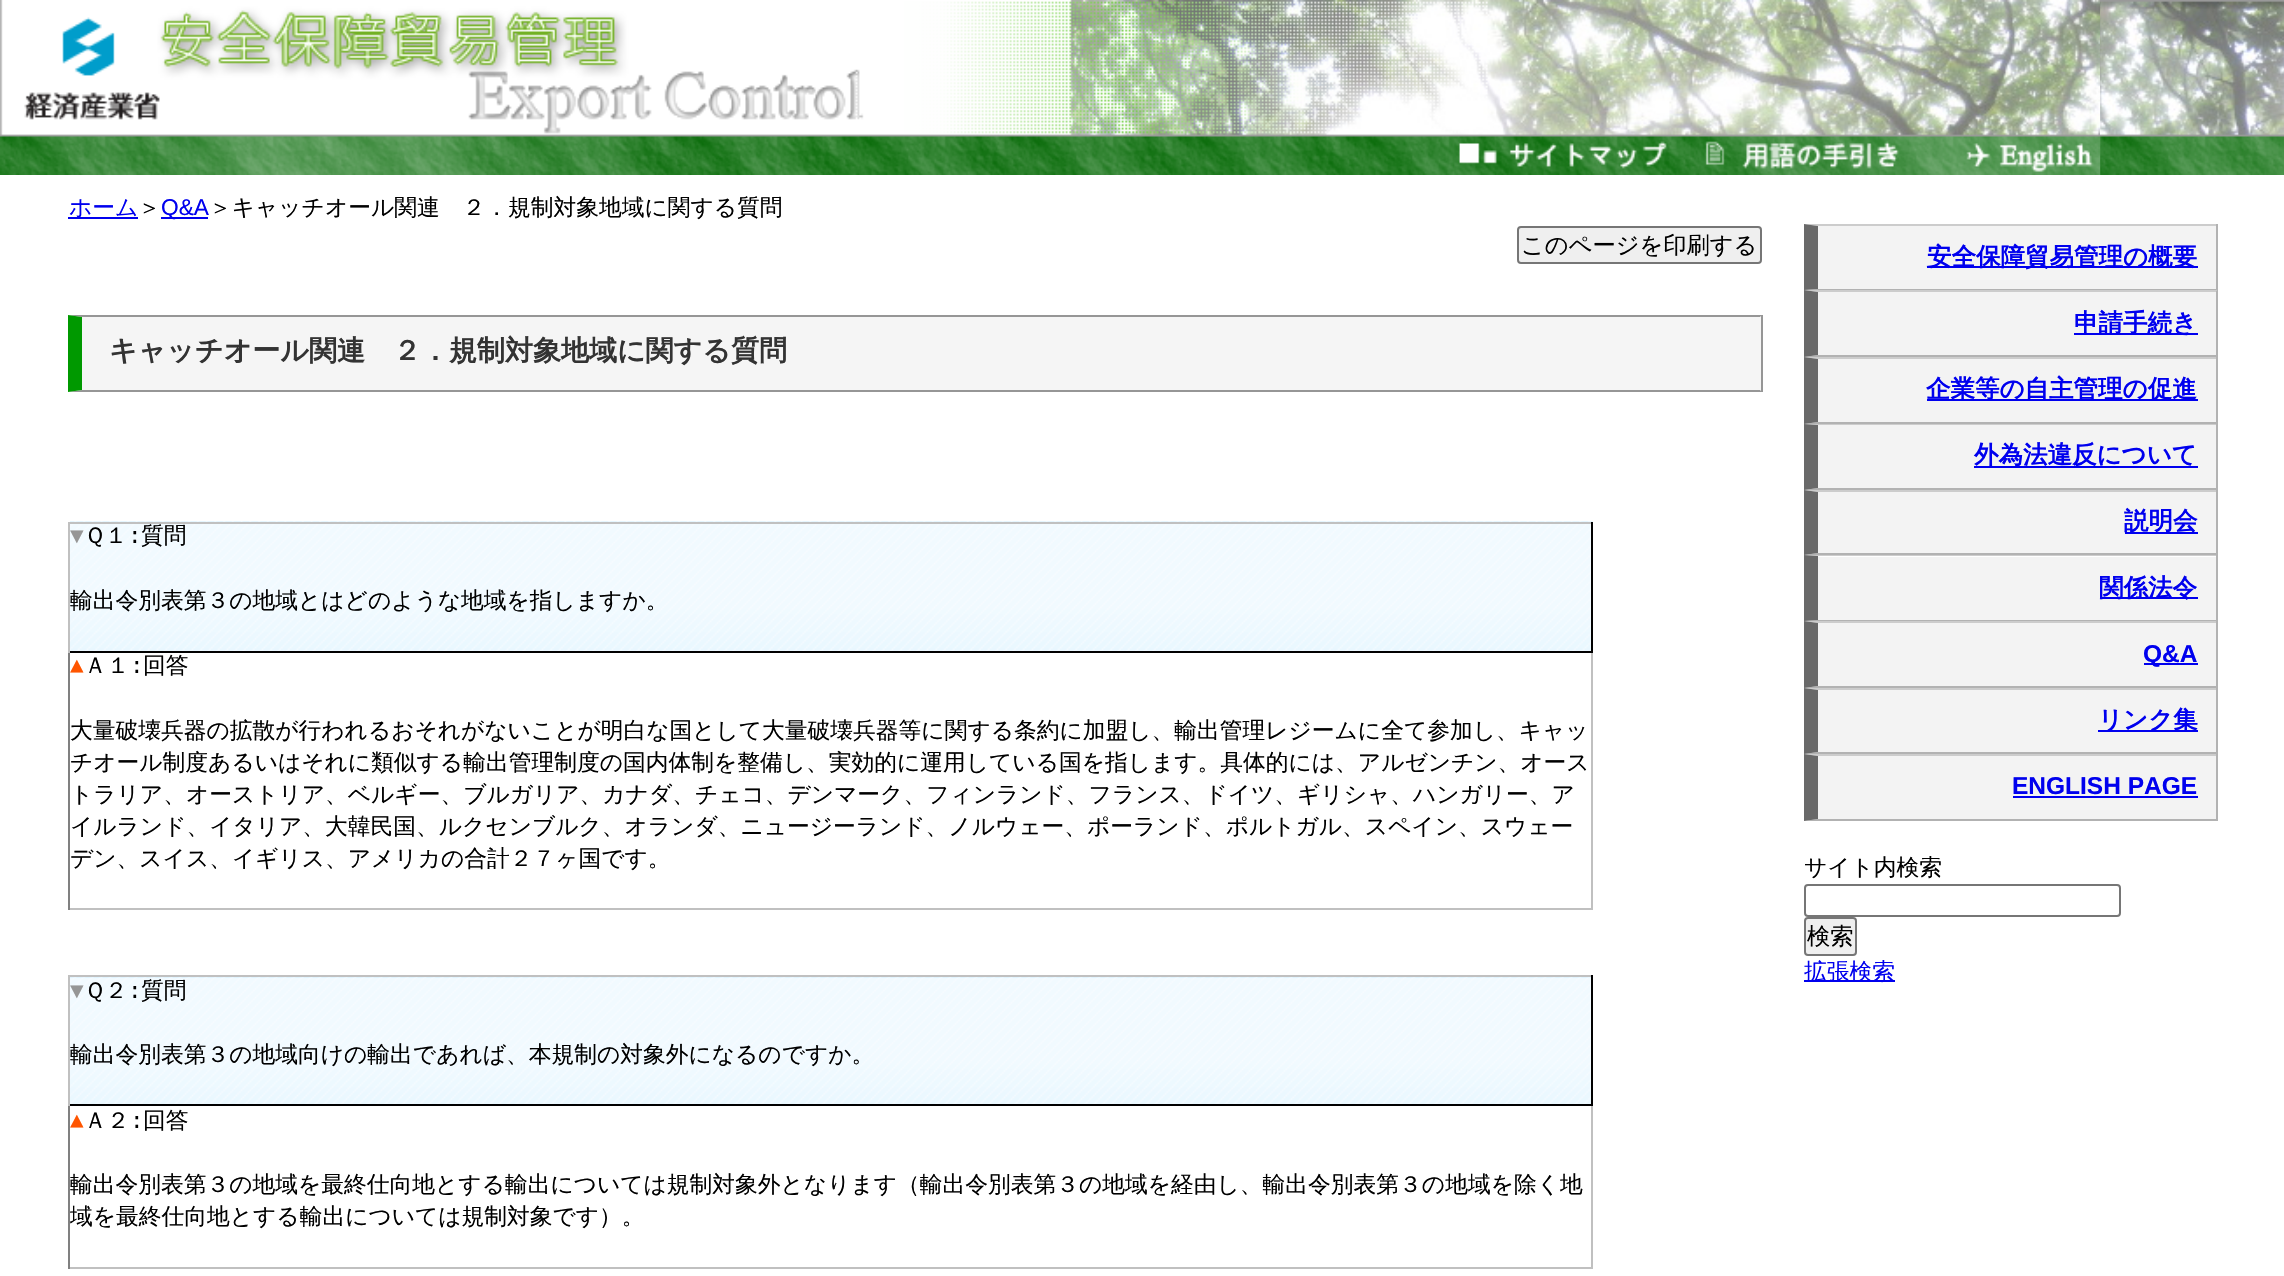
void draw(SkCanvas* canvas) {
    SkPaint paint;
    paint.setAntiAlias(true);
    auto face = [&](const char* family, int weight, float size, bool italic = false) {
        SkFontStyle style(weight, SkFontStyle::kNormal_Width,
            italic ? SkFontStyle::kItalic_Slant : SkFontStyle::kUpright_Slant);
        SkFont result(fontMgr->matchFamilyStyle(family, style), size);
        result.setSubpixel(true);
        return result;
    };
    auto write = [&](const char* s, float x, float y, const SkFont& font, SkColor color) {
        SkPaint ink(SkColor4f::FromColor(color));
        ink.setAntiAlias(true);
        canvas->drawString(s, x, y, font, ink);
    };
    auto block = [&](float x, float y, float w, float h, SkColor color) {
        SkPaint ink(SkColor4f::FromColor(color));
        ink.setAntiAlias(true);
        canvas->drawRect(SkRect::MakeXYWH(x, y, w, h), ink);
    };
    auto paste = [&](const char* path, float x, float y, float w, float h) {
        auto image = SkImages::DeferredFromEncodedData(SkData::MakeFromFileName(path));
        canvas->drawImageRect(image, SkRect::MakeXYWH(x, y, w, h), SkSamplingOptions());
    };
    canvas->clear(SK_ColorWHITE);
    paste("pic1.png", 2100, 0, 184, 175);
    paste("pic2.png", 0, 0, 2100, 175);
    block(68, 217, 70, 2, SkColorSetRGB(0, 0, 238));
    auto kFont1 = face("WenQuanYi Zen Hei", 500, 22.75f);
    write("ホーム", 69, 215, kFont1, SkColorSetRGB(0, 0, 238));
    write("＞", 138, 215, kFont1, SK_ColorBLACK);
    block(161, 217, 47, 2, SkColorSetRGB(0, 0, 238));
    auto kFont2 = face("Liberation Sans", 400, 22.75f);
    write("Q&A", 161, 215, kFont2, SkColorSetRGB(0, 0, 238));
    write("＞キャッチオール関連　２．規制対象地域に関する質問", 209, 215, kFont1, SK_ColorBLACK);
    paint.setColor(SkColorSetRGB(239, 239, 239));
    canvas->drawRoundRect(SkRect::MakeXYWH(1518, 227, 243, 36), 3, 3, paint);
    paint.setStyle(SkPaint::kStroke_Style);
    paint.setStrokeWidth(2);
    paint.setColor(SkColorSetRGB(118, 118, 118));
    canvas->drawRoundRect(SkRect::MakeXYWH(1518, 227, 243, 36), 3, 3, paint);
    auto kFont3 = face("WenQuanYi Zen Hei", 500, 23.25f);
    write("このページを印刷する", 1521, 253, kFont3, SK_ColorBLACK);
    block(82, 317, 1679, 73, SkColorSetRGB(245, 245, 245));
    paint.setStyle(SkPaint::kFill_Style);
    paint.setColor(SkColorSetRGB(150, 150, 150));
    canvas->drawPath(SkPathBuilder().moveTo(68, 315).lineTo(1762, 315).lineTo(1760, 317).lineTo(82, 317).close().detach(), paint);
    block(1761, 315, 2, 77, SkColorSetRGB(150, 150, 150));
    canvas->drawPath(SkPathBuilder().moveTo(1762, 392).lineTo(68, 392).lineTo(82, 390).lineTo(1760, 390).close().detach(), paint);
    paint.setColor(SkColorSetRGB(0, 153, 0));
    canvas->drawPath(SkPathBuilder().moveTo(68, 392).lineTo(68, 315).lineTo(82, 317).lineTo(82, 390).close().detach(), paint);
    auto kFont4 = face("WenQuanYi Zen Hei", 700, 28);
    write("キャッチオール関連　２．規制対象地域に関する質問", 109, 360, kFont4, SkColorSetRGB(51, 51, 51));
    block(1591, 653, 2, 257, SkColorSetRGB(192, 192, 192));
    block(68, 908, 1525, 2, SkColorSetRGB(192, 192, 192));
    block(68, 653, 2, 257, SkColorSetRGB(128, 128, 128));
    paste("pic3.png", 70, 521, 1523, 130);
    block(68, 522, 1525, 2, SkColorSetRGB(192, 192, 192));
    block(1591, 522, 2, 131, SK_ColorBLACK);
    block(68, 651, 1525, 2, SK_ColorBLACK);
    block(68, 522, 2, 131, SkColorSetRGB(192, 192, 192));
    auto kFont5 = face("Liberation Mono", 400, 22.75f);
    write("▼", 70, 543, kFont5, SkColorSetRGB(150, 150, 150));
    write("Ｑ１", 84, 543, kFont1, SK_ColorBLACK);
    write(":", 128, 543, kFont5, SK_ColorBLACK);
    write("質問", 141, 543, kFont1, SK_ColorBLACK);
    write("輸出令別表第３の地域とはどのような地域を指しますか。", 70, 608, kFont1, SK_ColorBLACK);
    write("▲", 70, 673, kFont5, SkColorSetRGB(255, 85, 0));
    write("Ａ１", 84, 673, kFont1, SK_ColorBLACK);
    write(":", 130, 673, kFont5, SK_ColorBLACK);
    write("回答", 143, 673, kFont1, SK_ColorBLACK);
    write("大量破壊兵器の拡散が行われるおそれがないことが明白な国として大量破壊兵器等に関する条約に加盟し、輸出管理レジームに全て参加し、キャッ", 70, 738, kFont1, SK_ColorBLACK);
    write("チオール制度あるいはそれに類似する輸出管理制度の国内体制を整備し、実効的に運用している国を指します。具体的には、アルゼンチン、オース", 70, 770, kFont1, SK_ColorBLACK);
    write("トラリア、オーストリア、ベルギー、ブルガリア、カナダ、チェコ、デンマーク、フィンランド、フランス、ドイツ、ギリシャ、ハンガリー、ア", 70, 802, kFont1, SK_ColorBLACK);
    write("イルランド、イタリア、大韓民国、ルクセンブルク、オランダ、ニュージーランド、ノルウェー、ポーランド、ポルトガル、スペイン、スウェー", 70, 834, kFont1, SK_ColorBLACK);
    write("デン、スイス、イギリス、アメリカの合計２７ヶ国です。", 70, 866, kFont1, SK_ColorBLACK);
    block(1591, 1106, 2, 163, SkColorSetRGB(192, 192, 192));
    block(68, 1267, 1525, 2, SkColorSetRGB(192, 192, 192));
    block(68, 1106, 2, 163, SkColorSetRGB(128, 128, 128));
    paste("pic4.png", 70, 977, 1521, 127);
    block(68, 975, 1525, 2, SkColorSetRGB(192, 192, 192));
    block(1591, 975, 2, 131, SK_ColorBLACK);
    block(68, 1104, 1525, 2, SK_ColorBLACK);
    block(68, 975, 2, 131, SkColorSetRGB(192, 192, 192));
    write("▼", 70, 998, kFont5, SkColorSetRGB(150, 150, 150));
    write("Ｑ２", 84, 998, kFont1, SK_ColorBLACK);
    write(":", 128, 998, kFont5, SK_ColorBLACK);
    write("質問", 141, 998, kFont1, SK_ColorBLACK);
    write("輸出令別表第３の地域向けの輸出であれば、本規制の対象外になるのですか。", 70, 1062, kFont1, SK_ColorBLACK);
    write("▲", 70, 1128, kFont5, SkColorSetRGB(255, 85, 0));
    write("Ａ２", 84, 1128, kFont1, SK_ColorBLACK);
    write(":", 130, 1128, kFont5, SK_ColorBLACK);
    write("回答", 143, 1128, kFont1, SK_ColorBLACK);
    write("輸出令別表第３の地域を最終仕向地とする輸出については規制対象外となります（輸出令別表第３の地域を経由し、輸出令別表第３の地域を除く地", 70, 1192, kFont1, SK_ColorBLACK);
    write("域を最終仕向地とする輸出については規制対象です）。", 70, 1224, kFont1, SK_ColorBLACK);
    block(1818, 226, 398, 63, SkColorSetRGB(243, 243, 243));
    paint.setColor(SkColorSetRGB(204, 204, 204));
    canvas->drawPath(SkPathBuilder().moveTo(1804, 224).lineTo(2217, 224).lineTo(2216, 226).lineTo(1818, 226).close().detach(), paint);
    block(2216, 224, 2, 67, SkColorSetRGB(178, 178, 178));
    paint.setColor(SkColorSetRGB(178, 178, 178));
    canvas->drawPath(SkPathBuilder().moveTo(2217, 290).lineTo(1804, 290).lineTo(1818, 289).lineTo(2216, 289).close().detach(), paint);
    paint.setColor(SkColorSetRGB(105, 105, 105));
    canvas->drawPath(SkPathBuilder().moveTo(1804, 290).lineTo(1804, 224).lineTo(1818, 226).lineTo(1818, 289).close().detach(), paint);
    block(1927, 266, 271, 2, SkColorSetRGB(0, 0, 238));
    auto kFont6 = face("WenQuanYi Zen Hei", 700, 24.5f);
    write("安全保障貿易管理の概要", 1927, 265, kFont6, SkColorSetRGB(0, 0, 238));
    block(1818, 292, 398, 63, SkColorSetRGB(243, 243, 243));
    paint.setColor(SkColorSetRGB(204, 204, 204));
    canvas->drawPath(SkPathBuilder().moveTo(1804, 290).lineTo(2217, 290).lineTo(2216, 292).lineTo(1818, 292).close().detach(), paint);
    block(2216, 291, 2, 66, SkColorSetRGB(178, 178, 178));
    paint.setColor(SkColorSetRGB(178, 178, 178));
    canvas->drawPath(SkPathBuilder().moveTo(2217, 357).lineTo(1804, 357).lineTo(1818, 355).lineTo(2216, 355).close().detach(), paint);
    paint.setColor(SkColorSetRGB(105, 105, 105));
    canvas->drawPath(SkPathBuilder().moveTo(1804, 357).lineTo(1804, 290).lineTo(1818, 292).lineTo(1818, 355).close().detach(), paint);
    block(2074, 333, 124, 2, SkColorSetRGB(0, 0, 238));
    write("申請手続き", 2074, 331, kFont6, SkColorSetRGB(0, 0, 238));
    block(1818, 359, 398, 63, SkColorSetRGB(243, 243, 243));
    paint.setColor(SkColorSetRGB(204, 204, 204));
    canvas->drawPath(SkPathBuilder().moveTo(1804, 357).lineTo(2217, 357).lineTo(2216, 359).lineTo(1818, 359).close().detach(), paint);
    block(2216, 357, 2, 67, SkColorSetRGB(178, 178, 178));
    paint.setColor(SkColorSetRGB(178, 178, 178));
    canvas->drawPath(SkPathBuilder().moveTo(2217, 424).lineTo(1804, 424).lineTo(1818, 422).lineTo(2216, 422).close().detach(), paint);
    paint.setColor(SkColorSetRGB(105, 105, 105));
    canvas->drawPath(SkPathBuilder().moveTo(1804, 424).lineTo(1804, 357).lineTo(1818, 359).lineTo(1818, 422).close().detach(), paint);
    block(1927, 399, 271, 2, SkColorSetRGB(0, 0, 238));
    write("企業等の自主管理の促進", 1926, 397, kFont6, SkColorSetRGB(0, 0, 238));
    block(1818, 425, 398, 63, SkColorSetRGB(243, 243, 243));
    paint.setColor(SkColorSetRGB(204, 204, 204));
    canvas->drawPath(SkPathBuilder().moveTo(1804, 424).lineTo(2217, 424).lineTo(2216, 425).lineTo(1818, 425).close().detach(), paint);
    block(2216, 424, 2, 66, SkColorSetRGB(178, 178, 178));
    paint.setColor(SkColorSetRGB(178, 178, 178));
    canvas->drawPath(SkPathBuilder().moveTo(2217, 490).lineTo(1804, 490).lineTo(1818, 488).lineTo(2216, 488).close().detach(), paint);
    paint.setColor(SkColorSetRGB(105, 105, 105));
    canvas->drawPath(SkPathBuilder().moveTo(1804, 490).lineTo(1804, 424).lineTo(1818, 425).lineTo(1818, 488).close().detach(), paint);
    block(1974, 466, 224, 2, SkColorSetRGB(0, 0, 238));
    write("外為法違反について", 1974, 463, kFont6, SkColorSetRGB(0, 0, 238));
    block(1818, 492, 398, 61, SkColorSetRGB(243, 243, 243));
    paint.setColor(SkColorSetRGB(204, 204, 204));
    canvas->drawPath(SkPathBuilder().moveTo(1804, 490).lineTo(2217, 490).lineTo(2216, 492).lineTo(1818, 492).close().detach(), paint);
    block(2216, 490, 2, 65, SkColorSetRGB(178, 178, 178));
    paint.setColor(SkColorSetRGB(178, 178, 178));
    canvas->drawPath(SkPathBuilder().moveTo(2217, 555).lineTo(1804, 555).lineTo(1818, 553).lineTo(2216, 553).close().detach(), paint);
    paint.setColor(SkColorSetRGB(105, 105, 105));
    canvas->drawPath(SkPathBuilder().moveTo(1804, 555).lineTo(1804, 490).lineTo(1818, 492).lineTo(1818, 553).close().detach(), paint);
    block(2125, 532, 73, 2, SkColorSetRGB(0, 0, 238));
    write("説明会", 2124, 529, kFont6, SkColorSetRGB(0, 0, 238));
    block(1818, 557, 398, 63, SkColorSetRGB(243, 243, 243));
    paint.setColor(SkColorSetRGB(204, 204, 204));
    canvas->drawPath(SkPathBuilder().moveTo(1804, 555).lineTo(2217, 555).lineTo(2216, 556).lineTo(1818, 556).close().detach(), paint);
    block(2216, 555, 2, 66, SkColorSetRGB(178, 178, 178));
    paint.setColor(SkColorSetRGB(178, 178, 178));
    canvas->drawPath(SkPathBuilder().moveTo(2217, 621).lineTo(1804, 621).lineTo(1818, 620).lineTo(2216, 620).close().detach(), paint);
    paint.setColor(SkColorSetRGB(105, 105, 105));
    canvas->drawPath(SkPathBuilder().moveTo(1804, 621).lineTo(1804, 555).lineTo(1818, 556).lineTo(1818, 620).close().detach(), paint);
    block(2100, 597, 98, 2, SkColorSetRGB(0, 0, 238));
    write("関係法令", 2099, 596, kFont6, SkColorSetRGB(0, 0, 238));
    block(1818, 623, 398, 63, SkColorSetRGB(243, 243, 243));
    paint.setColor(SkColorSetRGB(204, 204, 204));
    canvas->drawPath(SkPathBuilder().moveTo(1804, 621).lineTo(2217, 621).lineTo(2216, 623).lineTo(1818, 623).close().detach(), paint);
    block(2216, 621, 2, 67, SkColorSetRGB(178, 178, 178));
    paint.setColor(SkColorSetRGB(178, 178, 178));
    canvas->drawPath(SkPathBuilder().moveTo(2217, 688).lineTo(1804, 688).lineTo(1818, 686).lineTo(2216, 686).close().detach(), paint);
    paint.setColor(SkColorSetRGB(105, 105, 105));
    canvas->drawPath(SkPathBuilder().moveTo(1804, 688).lineTo(1804, 621).lineTo(1818, 623).lineTo(1818, 686).close().detach(), paint);
    block(2144, 663, 54, 2, SkColorSetRGB(0, 0, 238));
    auto kFont7 = face("Liberation Sans", 700, 24.5f);
    write("Q&A", 2143, 662, kFont7, SkColorSetRGB(0, 0, 238));
    block(1818, 690, 398, 62, SkColorSetRGB(243, 243, 243));
    paint.setColor(SkColorSetRGB(204, 204, 204));
    canvas->drawPath(SkPathBuilder().moveTo(1804, 688).lineTo(2217, 688).lineTo(2216, 690).lineTo(1818, 690).close().detach(), paint);
    block(2216, 688, 2, 66, SkColorSetRGB(178, 178, 178));
    paint.setColor(SkColorSetRGB(178, 178, 178));
    canvas->drawPath(SkPathBuilder().moveTo(2217, 754).lineTo(1804, 754).lineTo(1818, 752).lineTo(2216, 752).close().detach(), paint);
    paint.setColor(SkColorSetRGB(105, 105, 105));
    canvas->drawPath(SkPathBuilder().moveTo(1804, 754).lineTo(1804, 688).lineTo(1818, 690).lineTo(1818, 752).close().detach(), paint);
    block(2098, 730, 100, 2, SkColorSetRGB(0, 0, 238));
    write("リンク集", 2098, 728, kFont6, SkColorSetRGB(0, 0, 238));
    block(1818, 756, 398, 63, SkColorSetRGB(243, 243, 243));
    paint.setColor(SkColorSetRGB(204, 204, 204));
    canvas->drawPath(SkPathBuilder().moveTo(1804, 754).lineTo(2217, 754).lineTo(2216, 756).lineTo(1818, 756).close().detach(), paint);
    block(2216, 754, 2, 67, SkColorSetRGB(178, 178, 178));
    paint.setColor(SkColorSetRGB(178, 178, 178));
    canvas->drawPath(SkPathBuilder().moveTo(2217, 821).lineTo(1804, 821).lineTo(1818, 819).lineTo(2216, 819).close().detach(), paint);
    paint.setColor(SkColorSetRGB(105, 105, 105));
    canvas->drawPath(SkPathBuilder().moveTo(1804, 821).lineTo(1804, 754).lineTo(1818, 756).lineTo(1818, 819).close().detach(), paint);
    write("ENGLISH PAGE", 2012, 794, kFont7, SkColorSetRGB(0, 0, 238));
    block(2013, 796, 185, 2, SkColorSetRGB(0, 0, 238));
    write("サイト内検索", 1804, 875, kFont1, SK_ColorBLACK);
    paint.setStyle(SkPaint::kStroke_Style);
    paint.setColor(SkColorSetRGB(118, 118, 118));
    canvas->drawRoundRect(SkRect::MakeXYWH(1805, 885, 315, 31), 3, 3, paint);
    paint.setStyle(SkPaint::kFill_Style);
    paint.setColor(SkColorSetRGB(239, 239, 239));
    canvas->drawRoundRect(SkRect::MakeXYWH(1805, 918, 51, 37), 3, 3, paint);
    paint.setStyle(SkPaint::kStroke_Style);
    paint.setColor(SkColorSetRGB(118, 118, 118));
    canvas->drawRoundRect(SkRect::MakeXYWH(1805, 918, 51, 37), 3, 3, paint);
    write("検索", 1807, 944, kFont3, SK_ColorBLACK);
    block(1804, 980, 91, 2, SkColorSetRGB(0, 0, 238));
    write("拡張検索", 1804, 979, kFont1, SkColorSetRGB(0, 0, 238));
}
